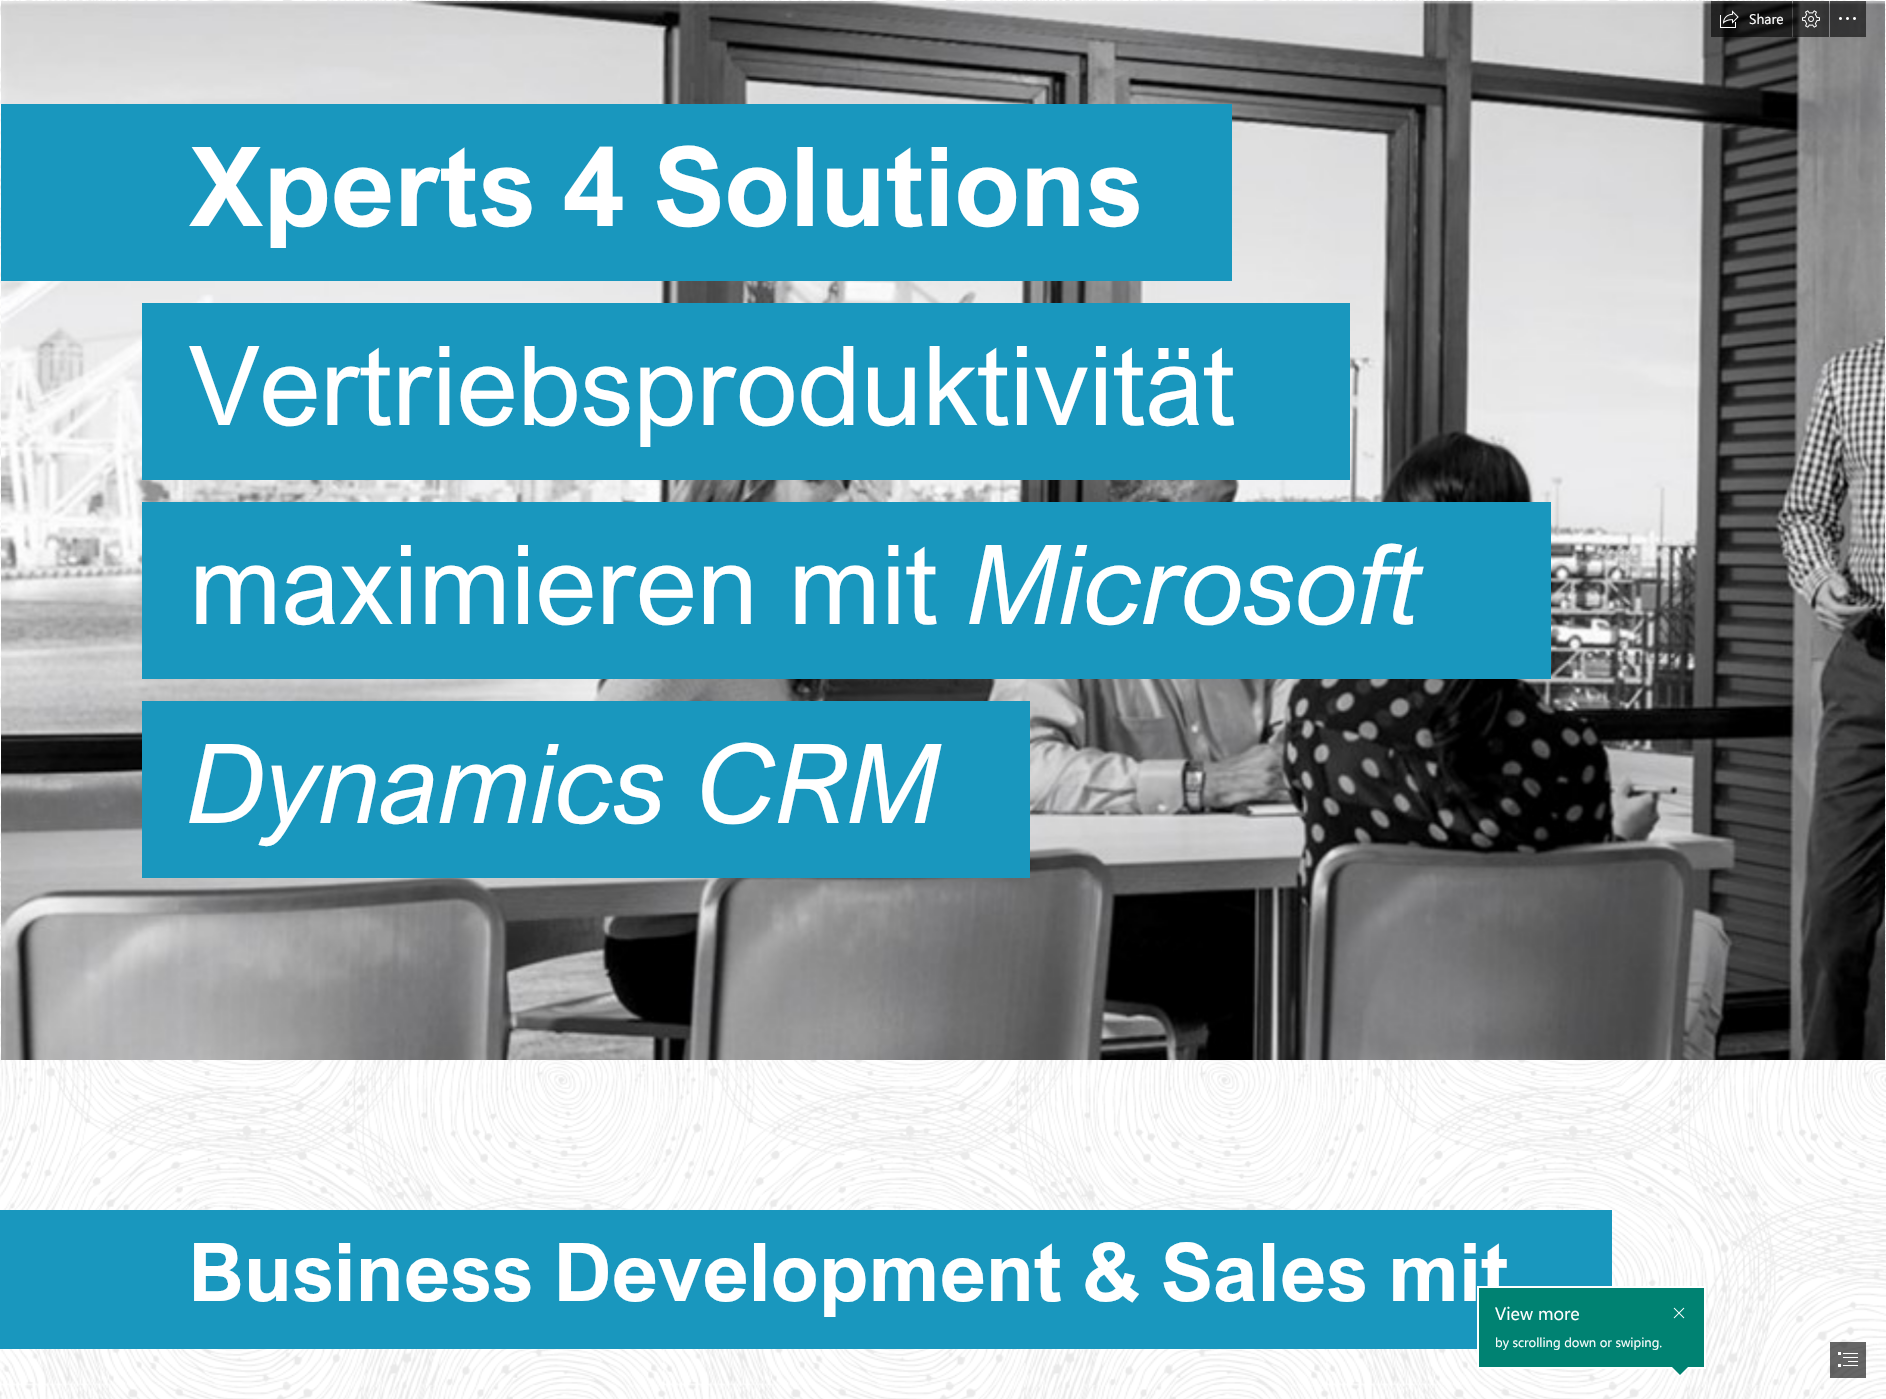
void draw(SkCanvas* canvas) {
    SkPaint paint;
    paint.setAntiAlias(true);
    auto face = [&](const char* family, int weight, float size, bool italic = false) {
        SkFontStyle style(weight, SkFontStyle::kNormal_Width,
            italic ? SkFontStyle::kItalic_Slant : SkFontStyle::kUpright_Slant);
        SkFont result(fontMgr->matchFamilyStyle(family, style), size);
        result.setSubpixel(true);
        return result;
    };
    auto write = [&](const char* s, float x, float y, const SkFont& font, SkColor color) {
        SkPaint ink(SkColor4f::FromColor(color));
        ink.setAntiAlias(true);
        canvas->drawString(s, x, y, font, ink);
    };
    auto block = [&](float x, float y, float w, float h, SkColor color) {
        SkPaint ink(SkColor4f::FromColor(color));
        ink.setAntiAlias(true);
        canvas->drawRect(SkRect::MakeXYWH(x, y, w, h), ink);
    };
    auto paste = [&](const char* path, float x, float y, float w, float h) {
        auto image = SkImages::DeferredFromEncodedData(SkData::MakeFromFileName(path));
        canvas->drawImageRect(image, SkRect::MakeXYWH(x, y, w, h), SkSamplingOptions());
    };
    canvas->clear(SkColorSetRGB(234, 234, 234));
    paste("pic4.png", 0, 0, 1886, 1399);
    paste("pic5.png", 1, 1, 1884, 1059);
    block(1711, 1, 81, 36, SkColorSetARGB(153, 0, 0, 0));
    paste("pic1.png", 1720, 10, 19, 18);
    auto kFont1 = face("Segoe UI", 400, 14);
    write("Share", 1749, 24, kFont1, SK_ColorWHITE);
    block(1793, 1, 36, 36, SkColorSetARGB(153, 0, 0, 0));
    paste("pic2.png", 1802, 10, 18, 18);
    block(1830, 1, 36, 36, SkColorSetARGB(153, 0, 0, 0));
    paste("pic3.png", 1839, 17, 17, 3);
    block(1, 104, 1231, 177, SkColorSetRGB(25, 151, 190));
    auto kFont2 = face("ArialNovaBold", 700, 110.5f);
    write("Xperts 4 Solutions", 189, 226, kFont2, SK_ColorWHITE);
    block(142, 303, 1208, 177, SkColorSetRGB(25, 151, 190));
    auto kFont3 = face("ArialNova", 400, 110.5f);
    write("Vertriebsproduktivität", 189, 425, kFont3, SK_ColorWHITE);
    block(142, 502, 1409, 177, SkColorSetRGB(25, 151, 190));
    write("maximieren mit", 189, 624, kFont3, SK_ColorWHITE);
    auto kFont4 = face("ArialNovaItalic", 400, 110.5f, true);
    write("Microsoft", 969, 624, kFont4, SK_ColorWHITE);
    block(142, 701, 888, 177, SkColorSetRGB(25, 151, 190));
    write("Dynamics CRM", 189, 823, kFont4, SK_ColorWHITE);
    block(0, 1210, 1612, 139, SkColorSetRGB(25, 151, 190));
    auto kFont5 = face("ArialNovaBold", 700, 81);
    write("Business Development & Sales mit", 188, 1301, kFont5, SK_ColorWHITE);
    paint.setColor(SkColorSetRGB(0, 130, 114));
    canvas->drawRect(SkRect::MakeXYWH(1478, 1287, 227, 81), paint);
    paint.setStyle(SkPaint::kStroke_Style);
    paint.setStrokeWidth(2);
    paint.setColor(SK_ColorWHITE);
    canvas->drawRect(SkRect::MakeXYWH(1478, 1287, 227, 81), paint);
    auto kFont6 = face("Segoe UI", 400, 18);
    write("View more", 1495, 1320, kFont6, SK_ColorWHITE);
    auto kFont7 = face("Segoe UI", 400, 13);
    write("by scrolling down or swiping.", 1495, 1347, kFont7, SK_ColorWHITE);
    paste("pic6.png", 1673, 1307, 12, 12);
    paint.setStyle(SkPaint::kFill_Style);
    canvas->drawPath(SkPathBuilder().moveTo(1670, 1367).lineTo(1690, 1367).lineTo(1680, 1377).close().detach(), paint);
    paint.setColor(SkColorSetRGB(0, 130, 114));
    canvas->drawPath(SkPathBuilder().moveTo(1672, 1367).lineTo(1688, 1367).lineTo(1680, 1375).close().detach(), paint);
    block(1830, 1342, 36, 36, SkColorSetARGB(153, 0, 0, 0));
    paste("pic7.png", 1838, 1352, 20, 15);
}
